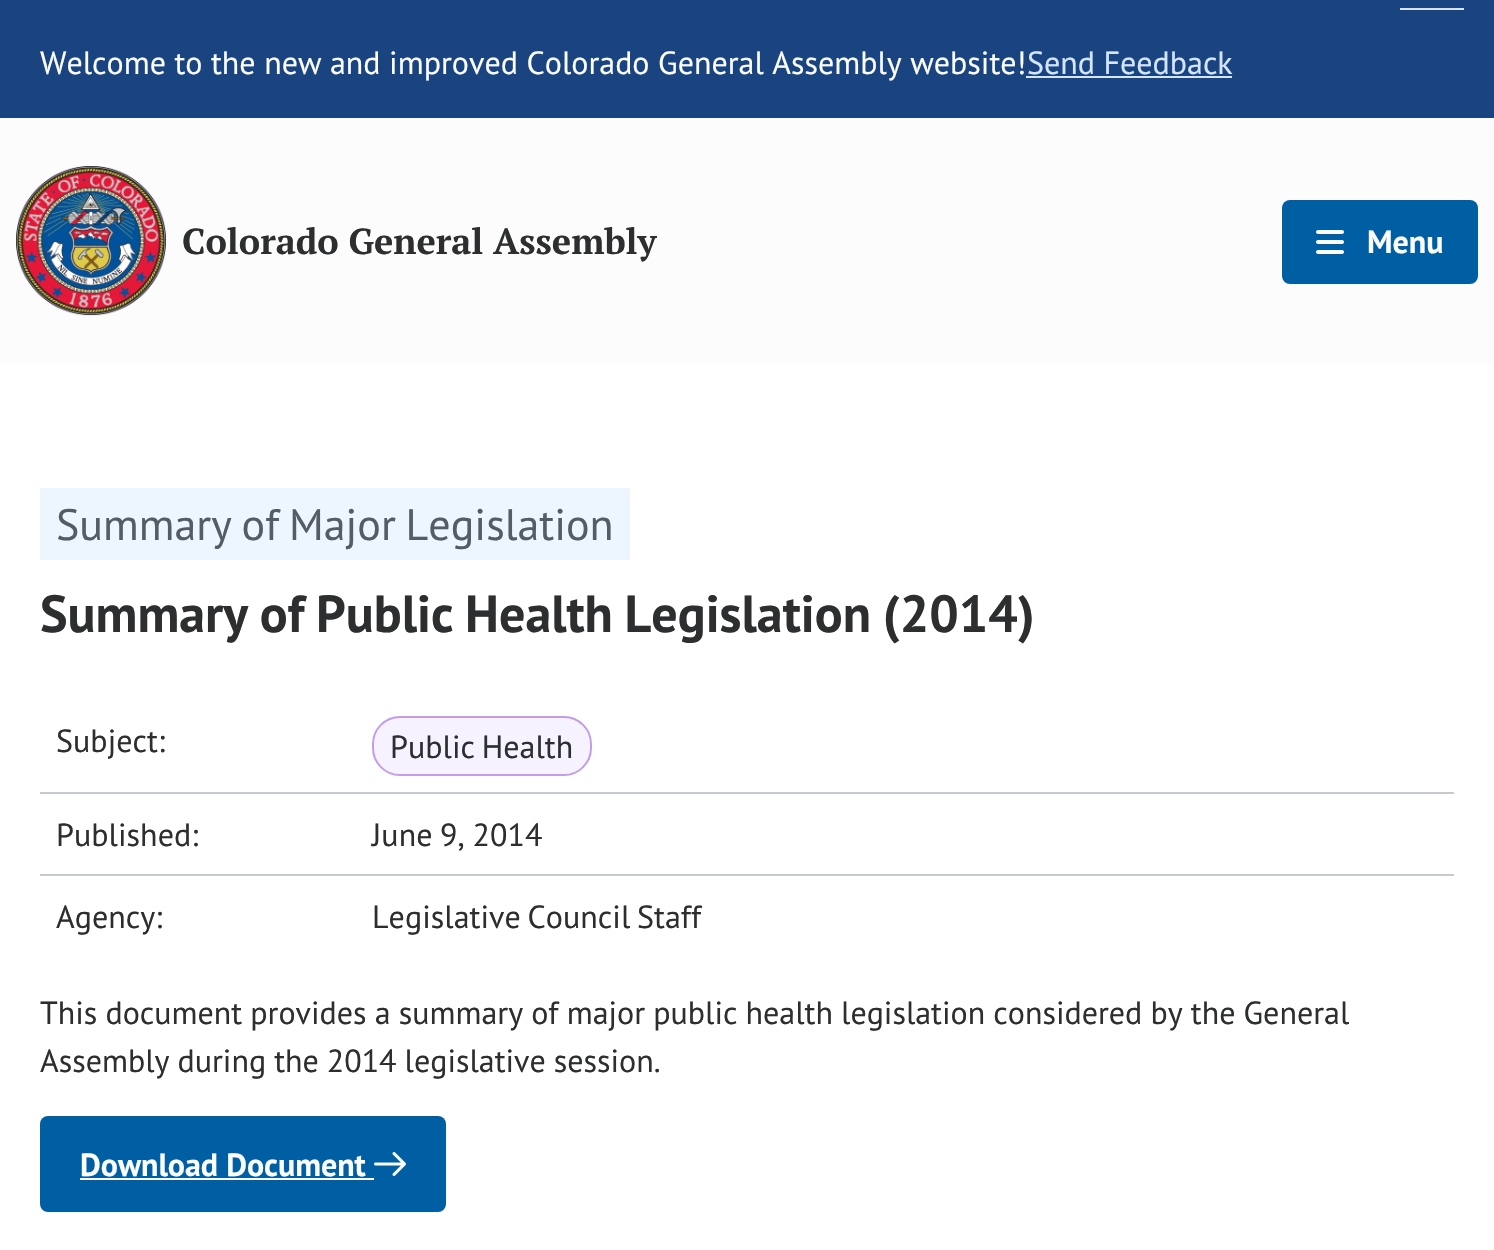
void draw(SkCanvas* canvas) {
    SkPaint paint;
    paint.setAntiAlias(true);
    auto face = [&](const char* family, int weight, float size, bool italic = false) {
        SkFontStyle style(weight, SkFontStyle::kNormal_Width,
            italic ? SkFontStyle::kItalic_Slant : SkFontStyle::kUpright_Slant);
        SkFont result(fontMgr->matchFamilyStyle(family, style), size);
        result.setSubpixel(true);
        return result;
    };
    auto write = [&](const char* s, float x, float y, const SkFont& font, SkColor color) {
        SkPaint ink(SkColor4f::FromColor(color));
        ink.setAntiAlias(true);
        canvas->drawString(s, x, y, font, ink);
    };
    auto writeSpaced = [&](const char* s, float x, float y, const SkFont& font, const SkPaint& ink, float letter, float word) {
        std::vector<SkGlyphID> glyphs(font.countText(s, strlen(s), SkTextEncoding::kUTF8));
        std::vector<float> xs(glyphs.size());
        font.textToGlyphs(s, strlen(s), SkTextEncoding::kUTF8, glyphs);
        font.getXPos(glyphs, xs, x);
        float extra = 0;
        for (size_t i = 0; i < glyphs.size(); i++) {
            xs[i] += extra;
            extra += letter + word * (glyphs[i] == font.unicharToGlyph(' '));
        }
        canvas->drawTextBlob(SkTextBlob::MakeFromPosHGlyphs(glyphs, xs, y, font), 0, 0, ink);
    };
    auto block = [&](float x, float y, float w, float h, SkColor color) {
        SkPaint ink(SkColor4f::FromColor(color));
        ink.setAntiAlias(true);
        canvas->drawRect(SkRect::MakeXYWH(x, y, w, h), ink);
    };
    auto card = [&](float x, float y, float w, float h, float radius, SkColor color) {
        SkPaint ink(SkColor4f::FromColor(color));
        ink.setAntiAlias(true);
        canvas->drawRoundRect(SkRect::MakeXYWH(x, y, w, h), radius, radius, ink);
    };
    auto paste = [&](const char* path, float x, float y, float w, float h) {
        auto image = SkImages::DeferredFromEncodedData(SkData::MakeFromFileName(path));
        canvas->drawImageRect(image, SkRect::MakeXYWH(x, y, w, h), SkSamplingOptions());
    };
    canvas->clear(SK_ColorWHITE);
    block(0, 0, 1494, 118, SkColorSetRGB(26, 68, 128));
    block(1400, 8, 64, 2, SkColorSetRGB(212, 229, 255));
    auto kFont1 = face("PT Sans", 400, 32);
    write("Welcome to the new and improved Colorado General Assembly website!", 40, 74, kFont1, SkColorSetRGB(252, 252, 252));
    write("Send Feedback", 1027, 74, kFont1, SkColorSetRGB(212, 229, 255));
    block(1026, 76, 206, 2, SkColorSetRGB(212, 229, 255));
    block(0, 118, 1494, 246, SkColorSetRGB(252, 252, 252));
    paste("pic1.png", 16, 166, 150, 150);
    auto kFont2 = face("PT Serif", 700, 36);
    write("Colorado General Assembly", 182, 254, kFont2, SkColorSetRGB(45, 46, 47));
    card(1282, 200, 196, 84, 8, SkColorSetRGB(0, 94, 162));
    paste("pic2.png", 1316, 230, 28, 24);
    auto kFont3 = face("PT Sans", 700, 32);
    write("Menu", 1367, 253, kFont3, SkColorSetRGB(252, 252, 252));
    block(40, 488, 590, 72, SkColorSetRGB(237, 245, 255));
    auto kFont4 = face("PT Sans", 400, 44);
    paint.setColor(SkColorSetRGB(86, 92, 101));
    writeSpaced("Summary of Major Legislation", 56, 540, kFont4, paint, 0, -2);
    auto kFont5 = face("PT Sans", 700, 52);
    paint.setColor(SkColorSetRGB(45, 46, 47));
    writeSpaced("Summary of Public Health Legislation (2014)", 40, 632, kFont5, paint, 0, -1.5f);
    block(40, 792, 1414, 2, SkColorSetRGB(198, 202, 206));
    writeSpaced("Subject:", 56, 752, kFont1, paint, 0.05f, 0);
    paint.setColor(SkColorSetRGB(247, 242, 255));
    canvas->drawRoundRect(SkRect::MakeXYWH(373, 717, 218, 58), 27, 27, paint);
    paint.setStyle(SkPaint::kStroke_Style);
    paint.setStrokeWidth(2);
    paint.setColor(SkColorSetRGB(195, 157, 235));
    canvas->drawRoundRect(SkRect::MakeXYWH(373, 717, 218, 58), 27, 27, paint);
    paint.setStyle(SkPaint::kFill_Style);
    paint.setColor(SkColorSetRGB(45, 46, 47));
    writeSpaced("Public Health", 390, 758, kFont1, paint, 0.05f, -2);
    block(40, 874, 1414, 2, SkColorSetRGB(198, 202, 206));
    writeSpaced("Published:", 56, 846, kFont1, paint, 0.05f, 0);
    writeSpaced("June 9, 2014", 372, 846, kFont1, paint, 0.05f, -1);
    writeSpaced("Agency:", 56, 928, kFont1, paint, 0.05f, 0);
    writeSpaced("Legislative Council Staff", 372, 928, kFont1, paint, 0.05f, -2);
    writeSpaced("This document provides a summary of major public health legislation considered by the General", 40, 1024, kFont1, paint, 0, -0.4f);
    writeSpaced("Assembly during the 2014 legislative session.", 40, 1072, kFont1, paint, 0, -0.5f);
    card(40, 1116, 406, 96, 8, SkColorSetRGB(0, 94, 162));
    write("Download Document", 80, 1176, kFont3, SkColorSetRGB(252, 252, 252));
    block(80, 1178, 294, 2, SkColorSetRGB(252, 252, 252));
    paste("pic3.png", 374, 1152, 32, 24);
}
